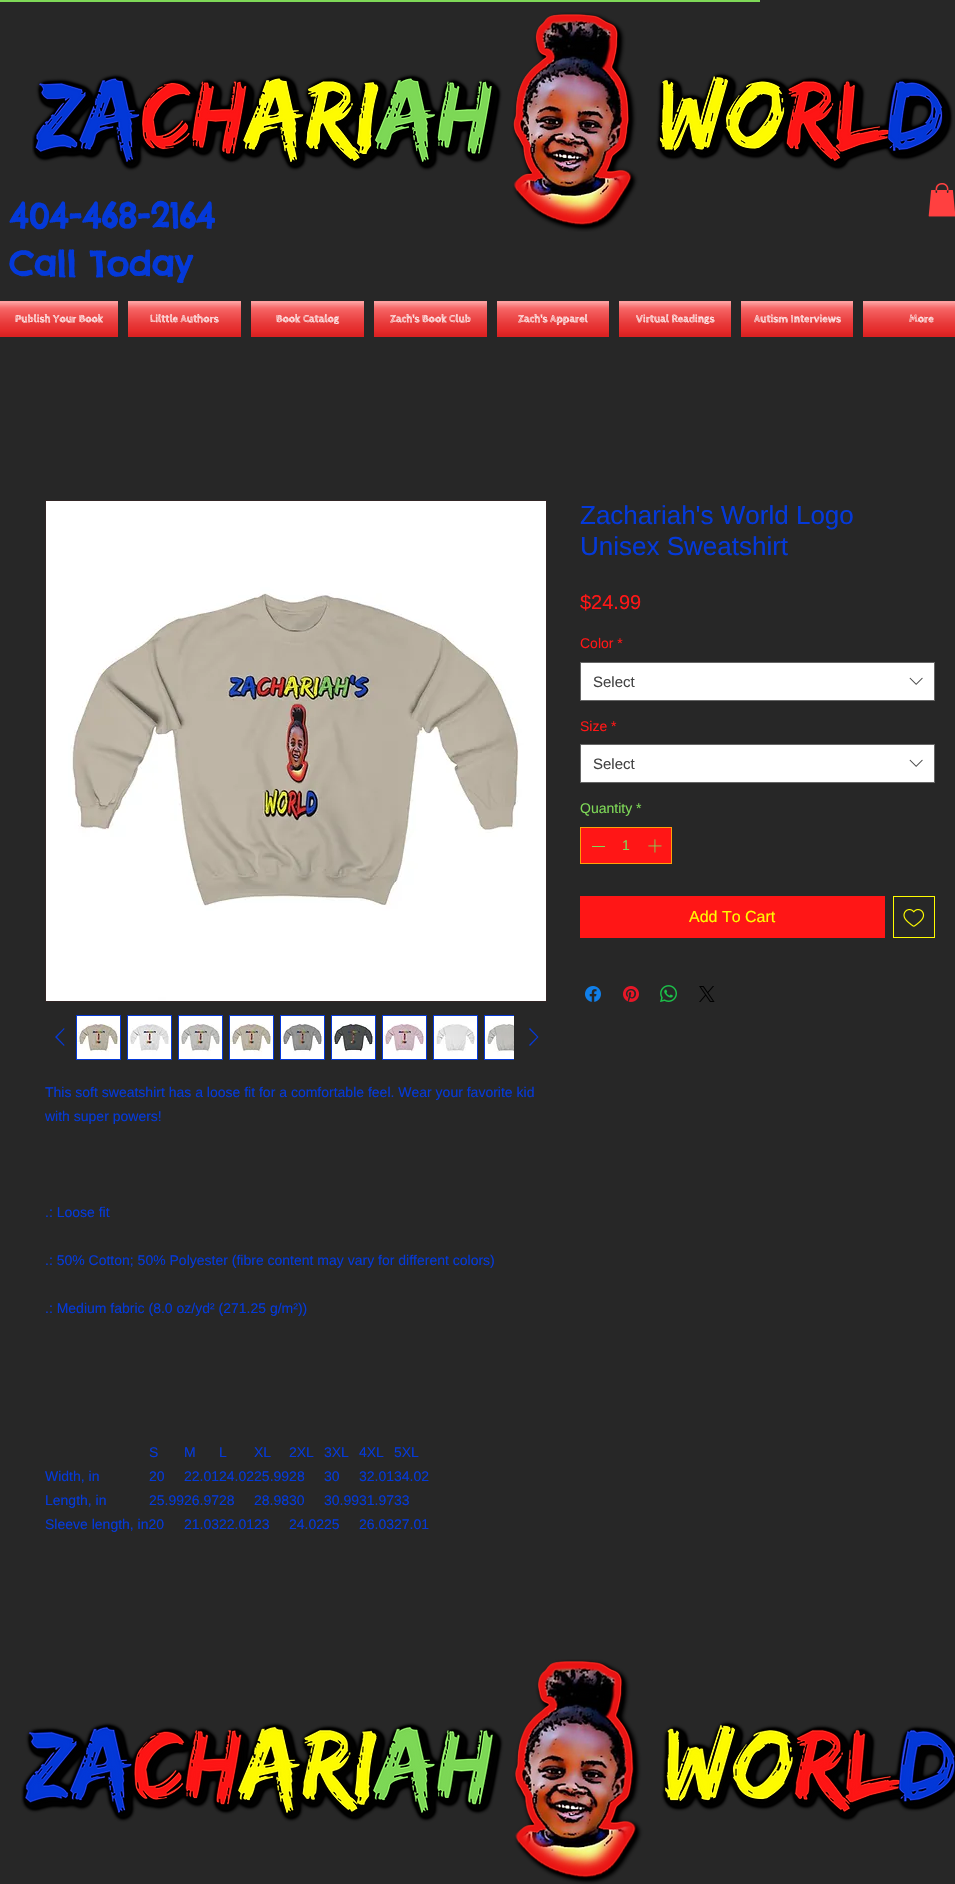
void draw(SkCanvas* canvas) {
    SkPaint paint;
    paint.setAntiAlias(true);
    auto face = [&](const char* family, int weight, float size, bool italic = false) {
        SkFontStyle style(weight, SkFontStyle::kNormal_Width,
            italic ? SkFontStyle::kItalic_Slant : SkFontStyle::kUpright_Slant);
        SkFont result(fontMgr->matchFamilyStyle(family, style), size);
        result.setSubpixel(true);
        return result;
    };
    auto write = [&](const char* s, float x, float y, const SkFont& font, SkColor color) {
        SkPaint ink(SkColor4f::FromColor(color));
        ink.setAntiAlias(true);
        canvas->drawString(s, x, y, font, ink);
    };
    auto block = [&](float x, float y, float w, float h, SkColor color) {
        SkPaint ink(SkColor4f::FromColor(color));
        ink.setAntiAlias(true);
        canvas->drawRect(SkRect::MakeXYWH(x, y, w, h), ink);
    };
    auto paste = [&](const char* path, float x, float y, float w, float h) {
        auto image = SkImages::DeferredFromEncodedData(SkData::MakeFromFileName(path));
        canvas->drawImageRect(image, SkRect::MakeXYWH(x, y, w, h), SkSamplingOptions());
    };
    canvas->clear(SkColorSetRGB(39, 39, 39));
    block(0, 0, 760, 2, SkColorSetRGB(126, 217, 87));
    paste("pic2.png", 928, 183, 27, 34);
    paste("pic1.png", 32, 12, 921, 220);
    auto kFont1 = face("Chelsea Market", 700, 34);
    write("404-468-2164", 9, 228, kFont1, SkColorSetRGB(4, 57, 217));
    write("Call Today", 9, 276, kFont1, SkColorSetRGB(4, 57, 217));
    block(0, 301, 118, 36, SkColorSetRGB(255, 22, 22));
    paste("pic3.png", 0, 301, 118, 36);
    paste("pic4.png", 0, 303, 118, 34);
    auto kFont2 = face("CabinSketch", 700, 11);
    write("Publish Your Book", 15, 322, kFont2, SK_ColorWHITE);
    block(128, 301, 113, 36, SkColorSetRGB(255, 22, 22));
    paste("pic5.png", 128, 301, 113, 36);
    paste("pic6.png", 128, 303, 113, 34);
    write("Lilttle Authors", 150, 322, kFont2, SK_ColorWHITE);
    block(251, 301, 113, 36, SkColorSetRGB(255, 22, 22));
    paste("pic5.png", 251, 301, 113, 36);
    paste("pic6.png", 251, 303, 113, 34);
    write("Book Catalog", 276, 322, kFont2, SK_ColorWHITE);
    block(374, 301, 113, 36, SkColorSetRGB(255, 22, 22));
    paste("pic5.png", 374, 301, 113, 36);
    paste("pic6.png", 374, 303, 113, 34);
    write("Zach's Book Club", 390, 322, kFont2, SK_ColorWHITE);
    block(497, 301, 112, 36, SkColorSetRGB(255, 22, 22));
    paste("pic7.png", 497, 301, 112, 36);
    paste("pic8.png", 497, 303, 112, 34);
    write("Zach's Apparel", 518, 322, kFont2, SK_ColorWHITE);
    block(619, 301, 112, 36, SkColorSetRGB(255, 22, 22));
    paste("pic7.png", 619, 301, 112, 36);
    paste("pic8.png", 619, 303, 112, 34);
    write("Virtual Readings", 636, 322, kFont2, SK_ColorWHITE);
    block(741, 301, 112, 36, SkColorSetRGB(255, 22, 22));
    paste("pic7.png", 741, 301, 112, 36);
    paste("pic8.png", 741, 303, 112, 34);
    write("Autism Interviews", 754, 322, kFont2, SK_ColorWHITE);
    block(863, 301, 92, 36, SkColorSetRGB(255, 22, 22));
    paste("pic9.png", 863, 301, 92, 36);
    paste("pic10.png", 863, 303, 92, 34);
    write("More", 909, 322, kFont2, SK_ColorWHITE);
    auto kFont3 = face("Liberation Sans", 400, 26);
    write("Zachariah's World Logo", 580, 524, kFont3, SkColorSetRGB(4, 57, 217));
    write("Unisex Sweatshirt", 580, 555, kFont3, SkColorSetRGB(4, 57, 217));
    auto kFont4 = face("Liberation Sans", 400, 20);
    write("$24.99", 580, 609, kFont4, SkColorSetRGB(255, 22, 22));
    auto kFont5 = face("Liberation Sans", 400, 14);
    write("Color *", 580, 648, kFont5, SkColorSetRGB(255, 22, 22));
    paint.setColor(SK_ColorWHITE);
    canvas->drawRect(SkRect::MakeXYWH(580.5f, 662.5f, 354, 38), paint);
    paint.setStyle(SkPaint::kStroke_Style);
    paint.setStrokeWidth(1);
    paint.setColor(SkColorSetRGB(102, 102, 102));
    canvas->drawRect(SkRect::MakeXYWH(580.5f, 662.5f, 354, 38), paint);
    auto kFont6 = face("Liberation Sans", 400, 15);
    write("Select", 593, 687, kFont6, SkColorSetRGB(68, 68, 68));
    paste("pic11.png", 909, 677, 14, 8);
    write("Size *", 580, 731, kFont5, SkColorSetRGB(255, 22, 22));
    paint.setStyle(SkPaint::kFill_Style);
    paint.setColor(SK_ColorWHITE);
    canvas->drawRect(SkRect::MakeXYWH(580.5f, 744.5f, 354, 38), paint);
    paint.setStyle(SkPaint::kStroke_Style);
    paint.setColor(SkColorSetRGB(102, 102, 102));
    canvas->drawRect(SkRect::MakeXYWH(580.5f, 744.5f, 354, 38), paint);
    write("Select", 593, 769, kFont6, SkColorSetRGB(68, 68, 68));
    paste("pic11.png", 909, 759, 14, 8);
    write("Quantity *", 580, 813, kFont5, SkColorSetRGB(126, 217, 87));
    paint.setStyle(SkPaint::kFill_Style);
    paint.setColor(SkColorSetRGB(255, 22, 22));
    canvas->drawRect(SkRect::MakeXYWH(580.5f, 827.5f, 91, 36), paint);
    paint.setStyle(SkPaint::kStroke_Style);
    paint.setColor(SkColorSetRGB(255, 160, 9));
    canvas->drawRect(SkRect::MakeXYWH(580.5f, 827.5f, 91, 36), paint);
    block(592, 846, 13, 1, SkColorSetRGB(126, 217, 87));
    write("1", 622, 850, kFont5, SkColorSetRGB(126, 217, 87));
    paste("pic12.png", 648, 839, 14, 14);
    block(580, 896, 305, 42, SkColorSetRGB(255, 22, 22));
    auto kFont7 = face("Liberation Sans", 400, 16);
    write("Add To Cart", 689, 922, kFont7, SkColorSetRGB(255, 252, 0));
    paint.setColor(SkColorSetRGB(255, 252, 0));
    canvas->drawRect(SkRect::MakeXYWH(893.5f, 896.5f, 41, 41), paint);
    paste("pic13.png", 903, 909, 22, 18);
    paste("pic14.png", 585, 986, 16, 16);
    paste("pic15.png", 623, 986, 16, 16);
    paste("pic16.png", 660, 985, 17, 17);
    paste("pic17.png", 699, 986, 16, 16);
    paint.setColor(SkColorSetRGB(50, 38, 38));
    canvas->drawRect(SkRect::MakeXYWH(45.5f, 500.5f, 501, 501), paint);
    paste("pic18.png", 46, 501, 500, 500);
    paint.setStyle(SkPaint::kFill_Style);
    paint.setColor(SkColorSetRGB(4, 57, 217));
    canvas->drawPath(SkPathBuilder(SkPathFillType::kEvenOdd).moveTo(64, 1028).lineTo(64.5f, 1029).lineTo(57, 1037).lineTo(64.5f, 1045).lineTo(64, 1046).lineTo(55, 1037).close().detach(), paint);
    block(76, 1015, 45, 45, SkColorSetRGB(4, 57, 217));
    paste("pic19.png", 77, 1016, 43, 43);
    block(127, 1015, 45, 45, SkColorSetRGB(4, 57, 217));
    paste("pic20.png", 128, 1016, 43, 43);
    block(178, 1015, 45, 45, SkColorSetRGB(4, 57, 217));
    paste("pic21.png", 179, 1016, 43, 43);
    block(229, 1015, 45, 45, SkColorSetRGB(4, 57, 217));
    paste("pic19.png", 230, 1016, 43, 43);
    block(280, 1015, 45, 45, SkColorSetRGB(4, 57, 217));
    paste("pic22.png", 281, 1016, 43, 43);
    block(331, 1015, 45, 45, SkColorSetRGB(4, 57, 217));
    paste("pic23.png", 332, 1016, 43, 43);
    block(382, 1015, 45, 45, SkColorSetRGB(4, 57, 217));
    paste("pic24.png", 383, 1016, 43, 43);
    block(433, 1015, 45, 45, SkColorSetRGB(4, 57, 217));
    paste("pic25.png", 434, 1016, 43, 43);
    block(484, 1015, 30, 45, SkColorSetRGB(4, 57, 217));
    paste("pic26.png", 485, 1016, 29, 43);
    canvas->drawPath(SkPathBuilder(SkPathFillType::kEvenOdd).moveTo(530, 1028).lineTo(538.5f, 1037).lineTo(530, 1046).lineTo(529, 1045).lineTo(537, 1037).lineTo(529, 1029).close().detach(), paint);
    write("This soft sweatshirt has a loose fit for a comfortable feel. Wear your favorite kid", 45, 1097, kFont5, SkColorSetRGB(4, 57, 217));
    write("with super powers!", 45, 1121, kFont5, SkColorSetRGB(4, 57, 217));
    write(".: Loose fit", 45, 1217, kFont5, SkColorSetRGB(4, 57, 217));
    write(".: 50% Cotton; 50% Polyester (fibre content may vary for different colors)", 45, 1265, kFont5, SkColorSetRGB(4, 57, 217));
    write(".: Medium fabric (8.0 oz/yd² (271.25 g/m²))", 45, 1313, kFont5, SkColorSetRGB(4, 57, 217));
    write("S", 149, 1457, kFont5, SkColorSetRGB(4, 57, 217));
    write("M", 184, 1457, kFont5, SkColorSetRGB(4, 57, 217));
    write("L", 219, 1457, kFont5, SkColorSetRGB(4, 57, 217));
    write("XL", 254, 1457, kFont5, SkColorSetRGB(4, 57, 217));
    write("2XL", 289, 1457, kFont5, SkColorSetRGB(4, 57, 217));
    write("3XL", 324, 1457, kFont5, SkColorSetRGB(4, 57, 217));
    write("4XL", 359, 1457, kFont5, SkColorSetRGB(4, 57, 217));
    write("5XL", 394, 1457, kFont5, SkColorSetRGB(4, 57, 217));
    write("Width, in", 45, 1481, kFont5, SkColorSetRGB(4, 57, 217));
    write("20", 149, 1481, kFont5, SkColorSetRGB(4, 57, 217));
    write("22.0124.0225.9928", 184, 1481, kFont5, SkColorSetRGB(4, 57, 217));
    write("30", 324, 1481, kFont5, SkColorSetRGB(4, 57, 217));
    write("32.0134.02", 359, 1481, kFont5, SkColorSetRGB(4, 57, 217));
    write("Length, in", 45, 1505, kFont5, SkColorSetRGB(4, 57, 217));
    write("25.9926.9728", 149, 1505, kFont5, SkColorSetRGB(4, 57, 217));
    write("28.9830", 254, 1505, kFont5, SkColorSetRGB(4, 57, 217));
    write("30.9931.9733", 324, 1505, kFont5, SkColorSetRGB(4, 57, 217));
    write("Sleeve length, in20", 45, 1529, kFont5, SkColorSetRGB(4, 57, 217));
    write("21.0322.0123", 184, 1529, kFont5, SkColorSetRGB(4, 57, 217));
    write("24.0225", 289, 1529, kFont5, SkColorSetRGB(4, 57, 217));
    write("26.0327.01", 359, 1529, kFont5, SkColorSetRGB(4, 57, 217));
    paste("pic27.png", 21, 1659, 934, 225);
}
